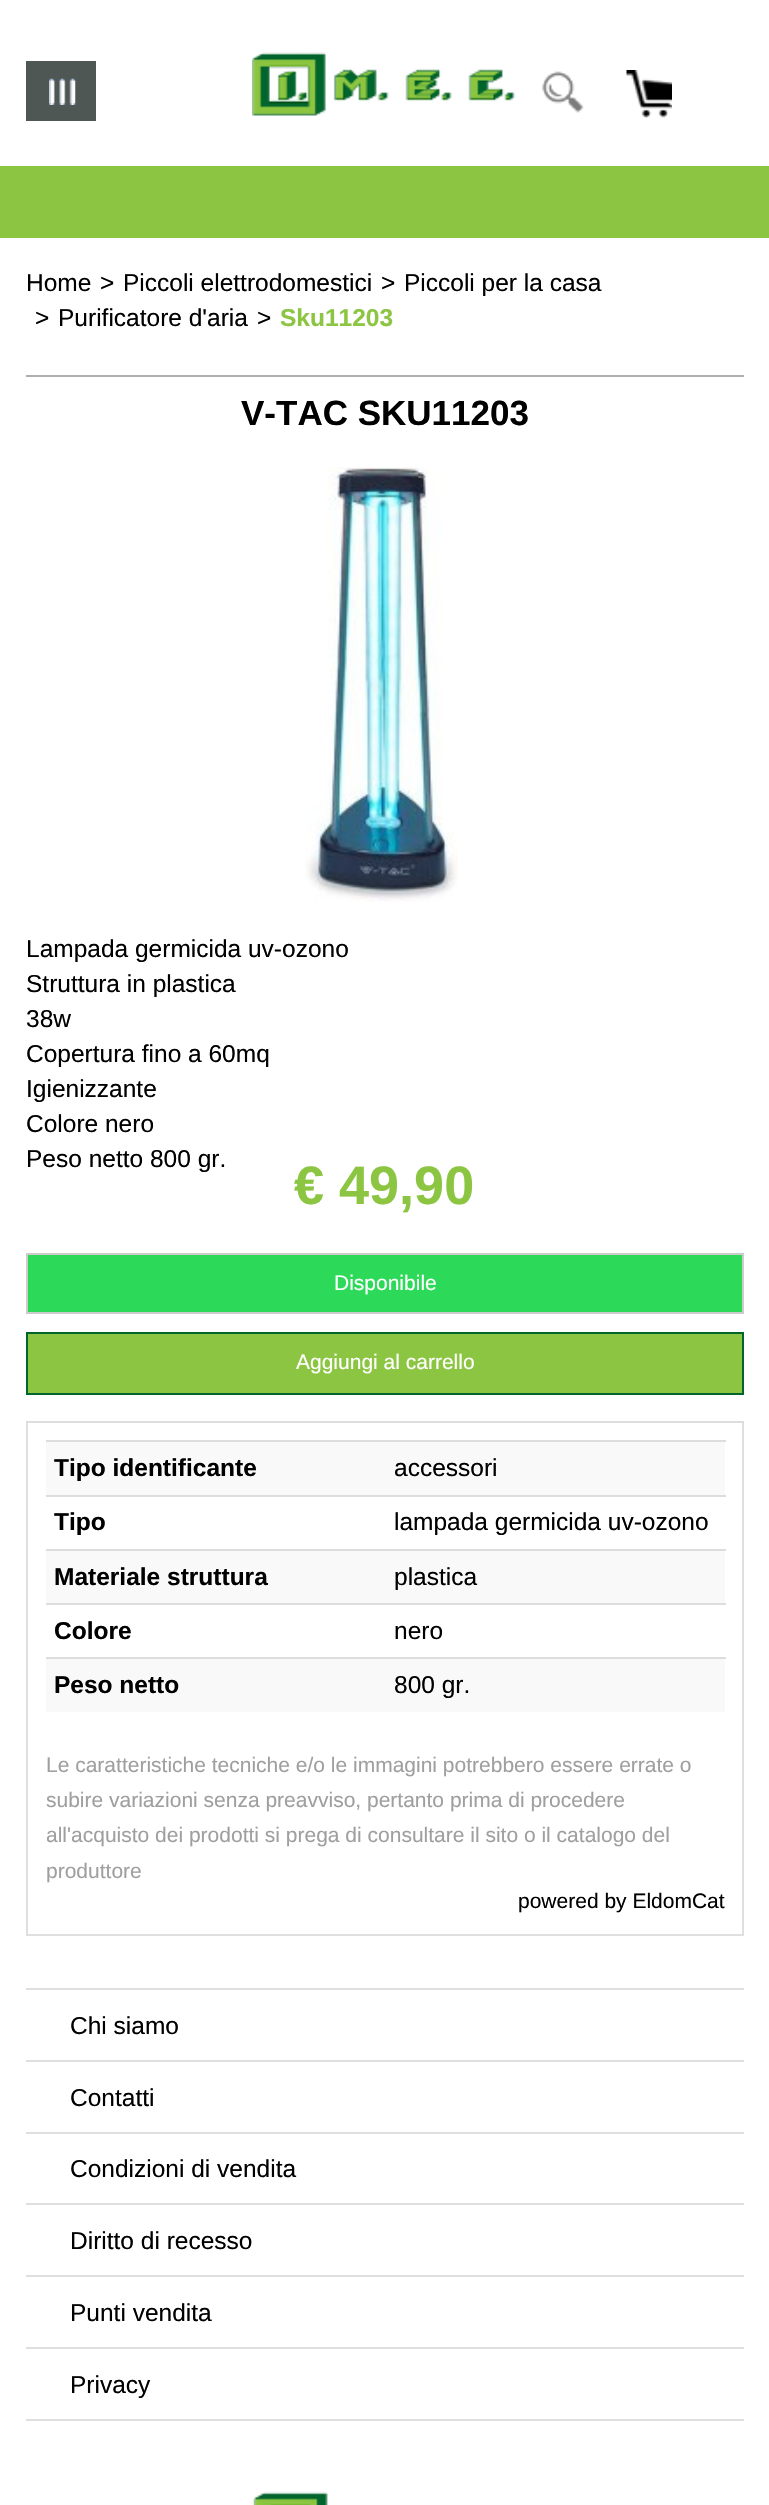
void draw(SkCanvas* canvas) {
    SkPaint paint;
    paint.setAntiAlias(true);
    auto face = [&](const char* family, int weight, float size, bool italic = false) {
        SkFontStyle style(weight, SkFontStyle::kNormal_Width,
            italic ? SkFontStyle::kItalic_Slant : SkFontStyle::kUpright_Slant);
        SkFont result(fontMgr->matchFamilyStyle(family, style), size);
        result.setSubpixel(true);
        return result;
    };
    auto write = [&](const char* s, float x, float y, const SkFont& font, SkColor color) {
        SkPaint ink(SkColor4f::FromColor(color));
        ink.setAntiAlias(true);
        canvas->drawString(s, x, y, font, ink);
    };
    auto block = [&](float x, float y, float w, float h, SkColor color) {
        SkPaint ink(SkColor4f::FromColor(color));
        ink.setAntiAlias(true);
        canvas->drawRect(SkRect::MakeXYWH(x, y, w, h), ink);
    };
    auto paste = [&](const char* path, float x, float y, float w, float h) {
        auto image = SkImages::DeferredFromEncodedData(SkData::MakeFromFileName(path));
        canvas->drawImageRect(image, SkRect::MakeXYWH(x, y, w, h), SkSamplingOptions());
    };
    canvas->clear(SK_ColorWHITE);
    block(26, 61, 70, 60, SkColorSetRGB(78, 87, 84));
    paste("pic1.png", 49, 78, 27, 27);
    paste("pic2.png", 252, 52, 263, 64);
    paste("pic3.png", 542, 71, 42, 42);
    paste("pic4.png", 626, 70, 46, 48);
    block(0, 166, 769, 72, SkColorSetRGB(140, 197, 66));
    auto kFont1 = face("Liberation Sans", 400, 24.5f);
    write("Home", 26, 291, kFont1, SK_ColorBLACK);
    write(">", 100, 291, kFont1, SK_ColorBLACK);
    write("Piccoli elettrodomestici", 123, 291, kFont1, SK_ColorBLACK);
    write(">", 381, 291, kFont1, SK_ColorBLACK);
    write("Piccoli per la casa", 404, 291, kFont1, SK_ColorBLACK);
    write(">", 35, 326, kFont1, SK_ColorBLACK);
    write("Purificatore d'aria", 58, 326, kFont1, SK_ColorBLACK);
    write(">", 257, 326, kFont1, SK_ColorBLACK);
    auto kFont2 = face("Liberation Sans", 700, 24.5f);
    write("Sku11203", 280, 326, kFont2, SkColorSetRGB(140, 197, 66));
    block(26, 375, 718, 2, SkColorSetRGB(175, 175, 175));
    auto kFont3 = face("Liberation Sans", 700, 35);
    write("V-TAC SKU11203", 241, 425, kFont3, SK_ColorBLACK);
    paste("pic5.png", 305, 467, 153, 435);
    write("Lampada germicida uv-ozono", 26, 957, kFont1, SK_ColorBLACK);
    write("Struttura in plastica", 26, 992, kFont1, SK_ColorBLACK);
    write("38w", 26, 1027, kFont1, SK_ColorBLACK);
    write("Copertura fino a 60mq", 26, 1062, kFont1, SK_ColorBLACK);
    write("Igienizzante", 26, 1097, kFont1, SK_ColorBLACK);
    write("Colore nero", 26, 1132, kFont1, SK_ColorBLACK);
    write("Peso netto 800 gr.", 26, 1167, kFont1, SK_ColorBLACK);
    auto kFont4 = face("Liberation Sans", 700, 54);
    write("€ 49,90", 294, 1204, kFont4, SkColorSetRGB(140, 197, 66));
    paint.setColor(SkColorSetRGB(45, 217, 89));
    canvas->drawRect(SkRect::MakeXYWH(27, 1254, 716, 59), paint);
    paint.setStyle(SkPaint::kStroke_Style);
    paint.setStrokeWidth(2);
    paint.setColor(SkColorSetRGB(204, 204, 204));
    canvas->drawRect(SkRect::MakeXYWH(27, 1254, 716, 59), paint);
    auto kFont5 = face("Liberation Sans", 400, 21);
    write("Disponibile", 334, 1290, kFont5, SK_ColorWHITE);
    paint.setStyle(SkPaint::kFill_Style);
    paint.setColor(SkColorSetRGB(140, 197, 66));
    canvas->drawRect(SkRect::MakeXYWH(27, 1333, 716, 61), paint);
    paint.setStyle(SkPaint::kStroke_Style);
    paint.setColor(SkColorSetRGB(0, 101, 45));
    canvas->drawRect(SkRect::MakeXYWH(27, 1333, 716, 61), paint);
    write("Aggiungi al carrello", 296, 1369, kFont5, SK_ColorWHITE);
    block(26, 1421, 718, 2, SkColorSetRGB(221, 221, 221));
    block(742, 1423, 2, 513, SkColorSetRGB(223, 223, 223));
    block(26, 1934, 718, 2, SkColorSetRGB(223, 223, 223));
    block(26, 1423, 2, 513, SkColorSetRGB(223, 223, 223));
    block(46, 1442, 679, 53, SkColorSetRGB(249, 249, 249));
    write("Tipo identificante", 54, 1476, kFont2, SK_ColorBLACK);
    block(46, 1440, 680, 2, SkColorSetRGB(221, 221, 221));
    write("accessori", 394, 1476, kFont1, SK_ColorBLACK);
    write("Tipo", 54, 1530, kFont2, SK_ColorBLACK);
    block(46, 1495, 680, 2, SkColorSetRGB(221, 221, 221));
    write("lampada germicida uv-ozono", 394, 1530, kFont1, SK_ColorBLACK);
    block(46, 1551, 679, 52, SkColorSetRGB(249, 249, 249));
    write("Materiale struttura", 54, 1585, kFont2, SK_ColorBLACK);
    block(46, 1549, 680, 2, SkColorSetRGB(221, 221, 221));
    write("plastica", 394, 1585, kFont1, SK_ColorBLACK);
    write("Colore", 54, 1639, kFont2, SK_ColorBLACK);
    block(46, 1603, 680, 2, SkColorSetRGB(221, 221, 221));
    write("nero", 394, 1639, kFont1, SK_ColorBLACK);
    block(46, 1659, 679, 53, SkColorSetRGB(249, 249, 249));
    write("Peso netto", 54, 1693, kFont2, SK_ColorBLACK);
    block(46, 1657, 680, 2, SkColorSetRGB(221, 221, 221));
    write("800 gr.", 394, 1693, kFont1, SK_ColorBLACK);
    write("Le caratteristiche tecniche e/o le immagini potrebbero essere errate o", 46, 1772, kFont5, SkColorSetRGB(159, 159, 159));
    write("subire variazioni senza preavviso, pertanto prima di procedere", 46, 1807, kFont5, SkColorSetRGB(159, 159, 159));
    write("all'acquisto dei prodotti si prega di consultare il sito o il catalogo del", 46, 1842, kFont5, SkColorSetRGB(159, 159, 159));
    write("produttore", 46, 1878, kFont5, SkColorSetRGB(159, 159, 159));
    write("powered by EldomCat", 518, 1908, kFont5, SK_ColorBLACK);
    block(26, 1988, 718, 2, SkColorSetRGB(223, 223, 223));
    block(26, 2060, 718, 2, SkColorSetRGB(223, 223, 223));
    write("Chi siamo", 70, 2034, kFont1, SK_ColorBLACK);
    block(26, 2132, 718, 2, SkColorSetRGB(223, 223, 223));
    write("Contatti", 70, 2106, kFont1, SK_ColorBLACK);
    block(26, 2203, 718, 2, SkColorSetRGB(223, 223, 223));
    write("Condizioni di vendita", 70, 2177, kFont1, SK_ColorBLACK);
    block(26, 2275, 718, 2, SkColorSetRGB(223, 223, 223));
    write("Diritto di recesso", 70, 2249, kFont1, SK_ColorBLACK);
    block(26, 2347, 718, 2, SkColorSetRGB(223, 223, 223));
    write("Punti vendita", 70, 2321, kFont1, SK_ColorBLACK);
    block(26, 2419, 718, 2, SkColorSetRGB(223, 223, 223));
    write("Privacy", 70, 2393, kFont1, SK_ColorBLACK);
    paste("pic6.png", 253, 2491, 75, 14);
}
